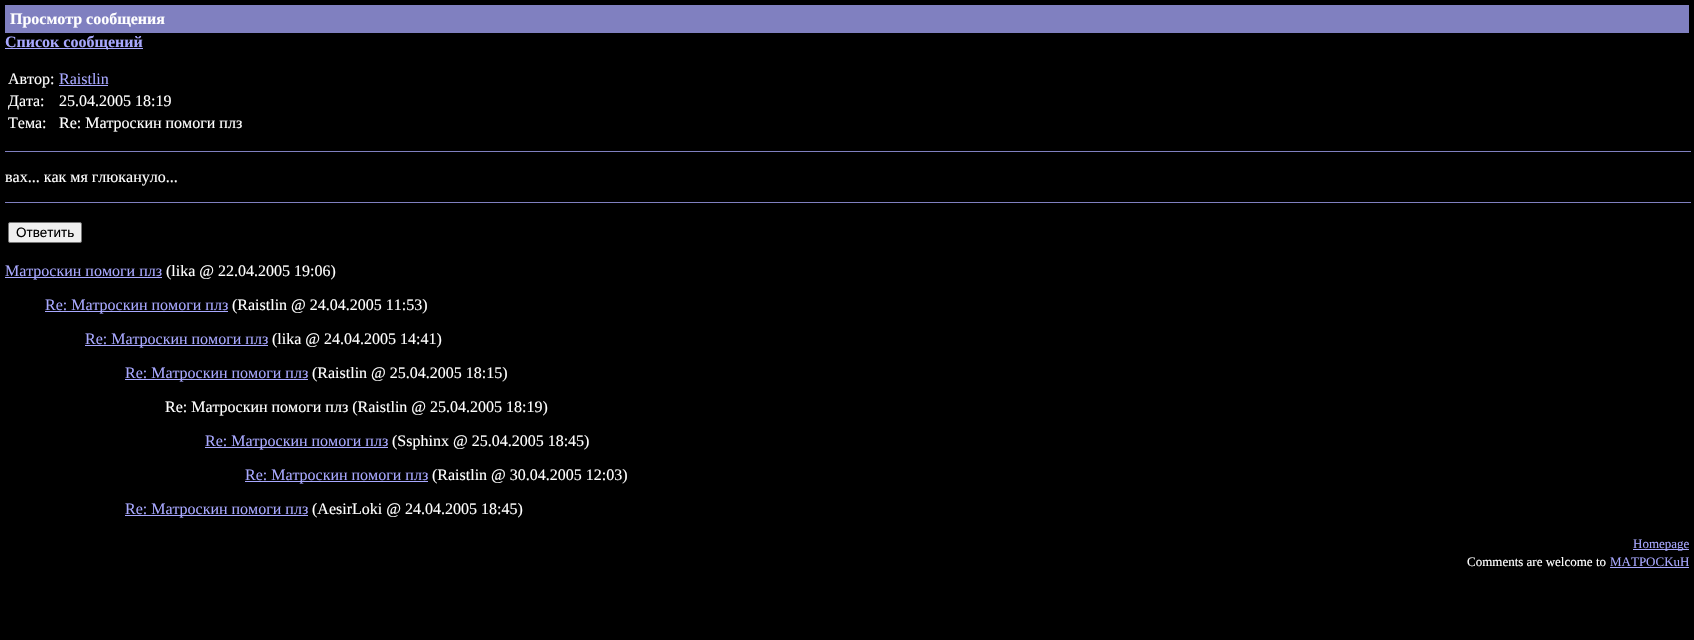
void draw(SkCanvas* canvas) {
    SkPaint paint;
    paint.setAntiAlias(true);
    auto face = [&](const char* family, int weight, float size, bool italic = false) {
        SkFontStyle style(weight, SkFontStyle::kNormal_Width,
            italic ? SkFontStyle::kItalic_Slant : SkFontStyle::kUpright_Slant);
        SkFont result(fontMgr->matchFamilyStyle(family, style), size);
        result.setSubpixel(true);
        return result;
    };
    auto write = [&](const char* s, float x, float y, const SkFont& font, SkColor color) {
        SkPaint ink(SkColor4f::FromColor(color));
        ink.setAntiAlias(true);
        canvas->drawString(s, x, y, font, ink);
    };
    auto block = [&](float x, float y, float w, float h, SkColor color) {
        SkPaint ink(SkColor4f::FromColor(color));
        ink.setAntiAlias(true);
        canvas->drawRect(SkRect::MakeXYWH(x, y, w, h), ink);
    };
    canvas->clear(SK_ColorBLACK);
    block(5, 5, 1684, 28, SkColorSetRGB(128, 128, 192));
    auto kFont1 = face("Liberation Serif", 700, 16);
    write("Просмотр сообщения", 10, 24, kFont1, SK_ColorWHITE);
    block(5, 48, 138, 1, SkColorSetRGB(168, 168, 255));
    write("Список сообщений", 5, 47, kFont1, SkColorSetRGB(168, 168, 255));
    auto kFont2 = face("Liberation Serif", 400, 16);
    write("Автор:", 8, 84, kFont2, SK_ColorWHITE);
    write("Raistlin", 59, 84, kFont2, SkColorSetRGB(168, 168, 255));
    block(59, 85, 49, 1, SkColorSetRGB(168, 168, 255));
    write("Дата:", 8, 106, kFont2, SK_ColorWHITE);
    write("25.04.2005 18:19", 59, 106, kFont2, SK_ColorWHITE);
    write("Тема:", 8, 128, kFont2, SK_ColorWHITE);
    write("Re: Матроскин помоги плз", 59, 128, kFont2, SK_ColorWHITE);
    block(5, 151, 1686, 1, SkColorSetRGB(128, 128, 192));
    write("вах... как мя глюкануло...", 5, 182, kFont2, SK_ColorWHITE);
    block(5, 202, 1686, 1, SkColorSetRGB(128, 128, 192));
    paint.setColor(SkColorSetRGB(239, 239, 239));
    canvas->drawRoundRect(SkRect::MakeXYWH(8.5f, 222.5f, 73, 20), 1.5f, 1.5f, paint);
    paint.setStyle(SkPaint::kStroke_Style);
    paint.setStrokeWidth(1);
    paint.setColor(SkColorSetRGB(118, 118, 118));
    canvas->drawRoundRect(SkRect::MakeXYWH(8.5f, 222.5f, 73, 20), 1.5f, 1.5f, paint);
    auto kFont3 = face("Liberation Sans", 400, 13.5f);
    write("Ответить", 16, 237, kFont3, SK_ColorBLACK);
    block(5, 277, 157, 1, SkColorSetRGB(168, 168, 255));
    write("Матроскин помоги плз", 5, 276, kFont2, SkColorSetRGB(168, 168, 255));
    write("(lika @ 22.04.2005 19:06)", 166, 276, kFont2, SK_ColorWHITE);
    block(45, 311, 183, 1, SkColorSetRGB(168, 168, 255));
    write("Re: Матроскин помоги плз", 45, 310, kFont2, SkColorSetRGB(168, 168, 255));
    write("(Raistlin @ 24.04.2005 11:53)", 232, 310, kFont2, SK_ColorWHITE);
    block(85, 345, 183, 1, SkColorSetRGB(168, 168, 255));
    write("Re: Матроскин помоги плз", 85, 344, kFont2, SkColorSetRGB(168, 168, 255));
    write("(lika @ 24.04.2005 14:41)", 272, 344, kFont2, SK_ColorWHITE);
    block(125, 379, 183, 1, SkColorSetRGB(168, 168, 255));
    write("Re: Матроскин помоги плз", 125, 378, kFont2, SkColorSetRGB(168, 168, 255));
    write("(Raistlin @ 25.04.2005 18:15)", 312, 378, kFont2, SK_ColorWHITE);
    write("Re: Матроскин помоги плз (Raistlin @ 25.04.2005 18:19)", 165, 412, kFont2, SK_ColorWHITE);
    block(205, 447, 183, 1, SkColorSetRGB(168, 168, 255));
    write("Re: Матроскин помоги плз", 205, 446, kFont2, SkColorSetRGB(168, 168, 255));
    write("(Ssphinx @ 25.04.2005 18:45)", 392, 446, kFont2, SK_ColorWHITE);
    block(245, 481, 183, 1, SkColorSetRGB(168, 168, 255));
    write("Re: Матроскин помоги плз", 245, 480, kFont2, SkColorSetRGB(168, 168, 255));
    write("(Raistlin @ 30.04.2005 12:03)", 432, 480, kFont2, SK_ColorWHITE);
    block(125, 515, 183, 1, SkColorSetRGB(168, 168, 255));
    write("Re: Матроскин помоги плз", 125, 514, kFont2, SkColorSetRGB(168, 168, 255));
    write("(AesirLoki @ 24.04.2005 18:45)", 312, 514, kFont2, SK_ColorWHITE);
    block(1633, 549, 56, 1, SkColorSetRGB(168, 168, 255));
    auto kFont4 = face("Liberation Serif", 400, 13);
    write("Homepage", 1633, 548, kFont4, SkColorSetRGB(168, 168, 255));
    write("Comments are welcome to", 1467, 566, kFont4, SK_ColorWHITE);
    write("MATPOCKuH", 1610, 566, kFont4, SkColorSetRGB(168, 168, 255));
    block(1610, 567, 79, 1, SkColorSetRGB(168, 168, 255));
}
